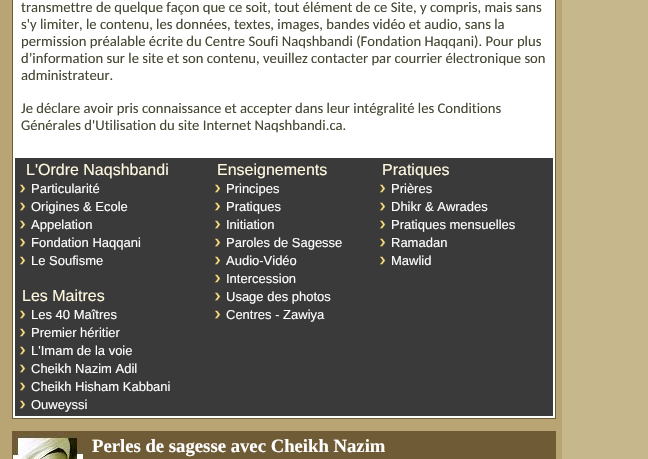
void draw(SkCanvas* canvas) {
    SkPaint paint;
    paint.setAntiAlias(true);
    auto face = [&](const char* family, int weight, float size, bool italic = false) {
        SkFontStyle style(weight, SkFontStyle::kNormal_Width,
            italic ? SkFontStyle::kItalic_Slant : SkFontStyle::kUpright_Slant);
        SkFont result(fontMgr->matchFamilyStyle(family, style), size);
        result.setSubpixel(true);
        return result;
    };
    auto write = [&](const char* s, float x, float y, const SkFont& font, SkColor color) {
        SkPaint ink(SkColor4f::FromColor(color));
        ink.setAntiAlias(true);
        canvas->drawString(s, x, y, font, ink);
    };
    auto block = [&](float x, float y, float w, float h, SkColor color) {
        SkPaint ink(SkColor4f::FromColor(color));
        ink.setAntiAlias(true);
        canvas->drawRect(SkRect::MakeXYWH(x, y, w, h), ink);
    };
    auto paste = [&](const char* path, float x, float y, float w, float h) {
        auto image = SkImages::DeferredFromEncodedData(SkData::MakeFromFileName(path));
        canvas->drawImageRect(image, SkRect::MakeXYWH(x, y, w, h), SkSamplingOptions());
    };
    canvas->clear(SkColorSetRGB(185, 165, 115));
    paint.setColor(SK_ColorWHITE);
    canvas->drawRect(SkRect::MakeXYWH(12.5f, -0.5f, 543, 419), paint);
    paint.setStyle(SkPaint::kStroke_Style);
    paint.setStrokeWidth(1);
    paint.setColor(SkColorSetRGB(111, 91, 54));
    canvas->drawRect(SkRect::MakeXYWH(12.5f, -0.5f, 543, 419), paint);
    auto kFont1 = face("Carlito", 400, 14.65f);
    write("transmettre de quelque façon que ce soit, tout élément de ce Site, y compris, mais sans", 21, 12, kFont1, SkColorSetRGB(70, 70, 51));
    write("s'y limiter, le contenu, les données, textes, images, bandes vidéo et audio, sans la", 21, 29, kFont1, SkColorSetRGB(70, 70, 51));
    write("permission préalable écrite du Centre Soufi Naqshbandi (Fondation Haqqani). Pour plus", 21, 46, kFont1, SkColorSetRGB(70, 70, 51));
    write("d’information sur le site et son contenu, veuillez contacter par courrier électronique son", 21, 63, kFont1, SkColorSetRGB(70, 70, 51));
    write("administrateur.", 21, 80, kFont1, SkColorSetRGB(70, 70, 51));
    write("Je déclare avoir pris connaissance et accepter dans leur intégralité les Conditions", 21, 113, kFont1, SkColorSetRGB(70, 70, 51));
    write("Générales d'Utilisation du site Internet Naqshbandi.ca.", 21, 130, kFont1, SkColorSetRGB(70, 70, 51));
    block(15, 158, 538, 258, SkColorSetRGB(58, 58, 58));
    auto kFont2 = face("Liberation Sans", 400, 16);
    write("L'Ordre Naqshbandi", 26, 175, kFont2, SkColorSetRGB(255, 248, 223));
    paste("pic1.png", 19, 184, 7, 9);
    auto kFont3 = face("Liberation Sans", 400, 13);
    write("Particularité", 31, 193, kFont3, SK_ColorWHITE);
    paste("pic1.png", 19, 202, 7, 9);
    write("Origines & Ecole", 31, 211, kFont3, SK_ColorWHITE);
    paste("pic1.png", 19, 220, 7, 9);
    write("Appelation", 31, 229, kFont3, SK_ColorWHITE);
    paste("pic1.png", 19, 238, 7, 9);
    write("Fondation Haqqani", 31, 247, kFont3, SK_ColorWHITE);
    paste("pic1.png", 19, 256, 7, 9);
    write("Le Soufisme", 31, 265, kFont3, SK_ColorWHITE);
    write("Les Maitres", 22, 301, kFont2, SkColorSetRGB(255, 248, 223));
    paste("pic1.png", 19, 310, 7, 9);
    write("Les 40 Maîtres", 31, 319, kFont3, SK_ColorWHITE);
    paste("pic1.png", 19, 328, 7, 9);
    write("Premier héritier", 31, 337, kFont3, SK_ColorWHITE);
    paste("pic1.png", 19, 346, 7, 9);
    write("L'Imam de la voie", 31, 355, kFont3, SK_ColorWHITE);
    paste("pic1.png", 19, 364, 7, 9);
    write("Cheikh Nazim Adil", 31, 373, kFont3, SK_ColorWHITE);
    paste("pic1.png", 19, 382, 7, 9);
    write("Cheikh Hisham Kabbani", 31, 391, kFont3, SK_ColorWHITE);
    paste("pic1.png", 19, 400, 7, 9);
    write("Ouweyssi", 31, 409, kFont3, SK_ColorWHITE);
    write("Enseignements", 217, 175, kFont2, SkColorSetRGB(255, 248, 223));
    paste("pic1.png", 214, 184, 7, 9);
    write("Principes", 226, 193, kFont3, SK_ColorWHITE);
    paste("pic1.png", 214, 202, 7, 9);
    write("Pratiques", 226, 211, kFont3, SK_ColorWHITE);
    paste("pic1.png", 214, 220, 7, 9);
    write("Initiation", 226, 229, kFont3, SK_ColorWHITE);
    paste("pic1.png", 214, 238, 7, 9);
    write("Paroles de Sagesse", 226, 247, kFont3, SK_ColorWHITE);
    paste("pic1.png", 214, 256, 7, 9);
    write("Audio-Vidéo", 226, 265, kFont3, SK_ColorWHITE);
    paste("pic1.png", 214, 274, 7, 9);
    write("Intercession", 226, 283, kFont3, SK_ColorWHITE);
    paste("pic1.png", 214, 292, 7, 9);
    write("Usage des photos", 226, 301, kFont3, SK_ColorWHITE);
    paste("pic1.png", 214, 310, 7, 9);
    write("Centres - Zawiya", 226, 319, kFont3, SK_ColorWHITE);
    write("Pratiques", 382, 175, kFont2, SkColorSetRGB(255, 248, 223));
    paste("pic2.png", 379, 184, 7, 9);
    write("Prières", 391, 193, kFont3, SK_ColorWHITE);
    paste("pic2.png", 379, 202, 7, 9);
    write("Dhikr & Awrades", 391, 211, kFont3, SK_ColorWHITE);
    paste("pic2.png", 379, 220, 7, 9);
    write("Pratiques mensuelles", 391, 229, kFont3, SK_ColorWHITE);
    paste("pic2.png", 379, 238, 7, 9);
    write("Ramadan", 391, 247, kFont3, SK_ColorWHITE);
    paste("pic2.png", 379, 256, 7, 9);
    write("Mawlid", 391, 265, kFont3, SK_ColorWHITE);
    canvas->drawRect(SkRect::MakeXYWH(12.5f, 431.5f, 543, 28), paint);
    paste("pic3.png", 13, 432, 70, 27);
    block(83, 432, 472, 27, SkColorSetRGB(111, 91, 54));
    auto kFont4 = face("Liberation Serif", 700, 18.7f);
    write("Perles de sagesse avec Cheikh Nazim", 92, 452, kFont4, SK_ColorWHITE);
    block(562, 0, 86, 459, SkColorSetRGB(199, 183, 141));
}
